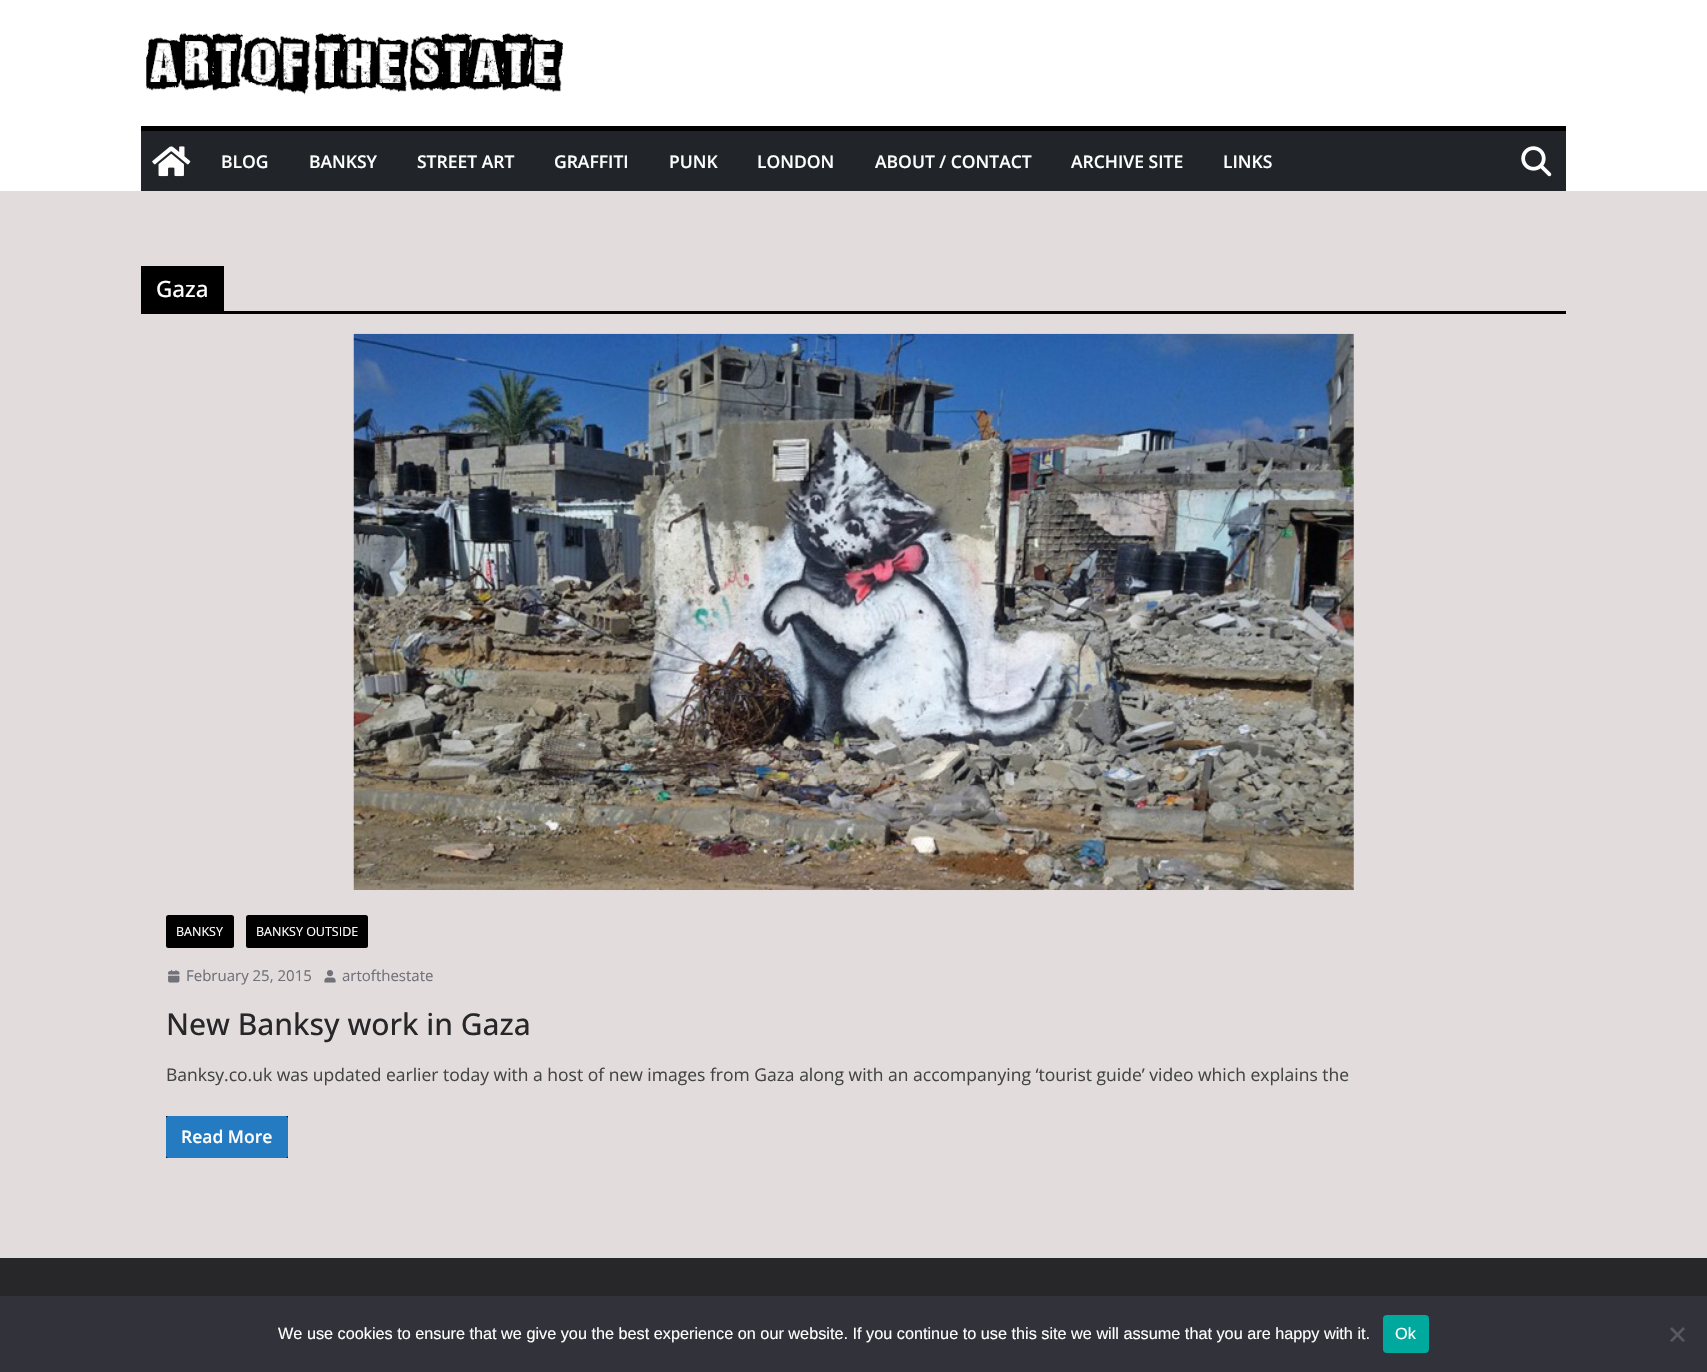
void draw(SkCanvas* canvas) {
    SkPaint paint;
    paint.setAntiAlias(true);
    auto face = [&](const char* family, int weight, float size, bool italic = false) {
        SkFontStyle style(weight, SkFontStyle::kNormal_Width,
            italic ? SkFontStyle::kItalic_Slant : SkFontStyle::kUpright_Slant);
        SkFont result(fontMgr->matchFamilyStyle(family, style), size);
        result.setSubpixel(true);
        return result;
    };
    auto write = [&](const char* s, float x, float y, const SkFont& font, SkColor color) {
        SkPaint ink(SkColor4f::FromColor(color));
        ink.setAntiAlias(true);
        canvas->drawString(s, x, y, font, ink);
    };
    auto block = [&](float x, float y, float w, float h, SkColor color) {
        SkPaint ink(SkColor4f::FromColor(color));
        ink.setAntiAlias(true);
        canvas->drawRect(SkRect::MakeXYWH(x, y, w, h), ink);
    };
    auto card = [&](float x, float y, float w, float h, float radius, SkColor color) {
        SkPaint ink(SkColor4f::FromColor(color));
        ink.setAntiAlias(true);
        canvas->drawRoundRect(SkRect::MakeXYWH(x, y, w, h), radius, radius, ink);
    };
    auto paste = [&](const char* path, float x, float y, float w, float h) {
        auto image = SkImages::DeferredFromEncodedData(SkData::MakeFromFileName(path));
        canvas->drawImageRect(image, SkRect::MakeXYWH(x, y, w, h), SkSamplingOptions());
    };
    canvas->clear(SK_ColorWHITE);
    paste("pic1.png", 146, 32, 418, 63);
    block(141, 131, 1425, 60, SkColorSetRGB(33, 37, 41));
    block(141, 126, 1425, 5, SK_ColorBLACK);
    paste("pic2.png", 152, 146, 39, 31);
    auto kFont1 = face("Open Sans", 600, 17.5f);
    write("BLOG", 221, 168, kFont1, SK_ColorWHITE);
    write("BANKSY", 309, 168, kFont1, SK_ColorWHITE);
    write("STREET ART", 417, 168, kFont1, SK_ColorWHITE);
    write("GRAFFITI", 554, 168, kFont1, SK_ColorWHITE);
    write("PUNK", 669, 168, kFont1, SK_ColorWHITE);
    write("LONDON", 757, 168, kFont1, SK_ColorWHITE);
    write("ABOUT / CONTACT", 875, 168, kFont1, SK_ColorWHITE);
    write("ARCHIVE SITE", 1071, 168, kFont1, SK_ColorWHITE);
    write("LINKS", 1223, 168, kFont1, SK_ColorWHITE);
    paste("pic3.png", 1521, 146, 31, 31);
    block(0, 191, 1707, 1067, SkColorSetRGB(226, 220, 220));
    block(141, 311, 1425, 3, SK_ColorBLACK);
    block(141, 266, 83, 45, SK_ColorBLACK);
    auto kFont2 = face("Open Sans", 500, 22.5f);
    write("Gaza", 156, 297, kFont2, SK_ColorWHITE);
    paste("pic4.png", 353, 333, 1001, 557);
    card(166, 915, 68, 33, 2.5f, SK_ColorBLACK);
    auto kFont3 = face("Open Sans", 400, 12.5f);
    write("BANKSY", 176, 936, kFont3, SK_ColorWHITE);
    card(246, 915, 122, 33, 2.5f, SK_ColorBLACK);
    write("BANKSY OUTSIDE", 256, 936, kFont3, SK_ColorWHITE);
    paste("pic5.png", 168, 970, 12, 13);
    auto kFont4 = face("Open Sans", 400, 15);
    write("February 25, 2015", 186, 981, kFont4, SkColorSetRGB(113, 113, 122));
    paste("pic6.png", 324, 970, 12, 13);
    write("artofthestate", 342, 981, kFont4, SkColorSetRGB(113, 113, 122));
    auto kFont5 = face("Open Sans", 500, 30);
    write("New Banksy work in Gaza", 166, 1035, kFont5, SkColorSetRGB(39, 39, 42));
    auto kFont6 = face("Open Sans", 400, 17.5f);
    write("Banksy.co.uk was updated earlier today with a host of new images from Gaza along with an accompanying ‘tourist guide’ video which explains the", 166, 1081, kFont6, SkColorSetRGB(68, 68, 68));
    block(166, 1116, 122, 42, SK_ColorBLACK);
    card(166, 1116, 122, 42, 2.5f, SkColorSetRGB(37, 123, 193));
    write("Read More", 181, 1143, kFont1, SK_ColorWHITE);
    block(0, 1258, 1707, 38, SkColorSetRGB(39, 39, 42));
    block(0, 1296, 1707, 76, SkColorSetRGB(50, 50, 58));
    auto kFont7 = face("Liberation Sans", 400, 16.25f);
    write("We use cookies to ensure that we give you the best experience on our website. If you continue to use this site we will assume that you are happy with it.", 278, 1339, kFont7, SK_ColorWHITE);
    card(1383, 1315, 46, 38, 4, SkColorSetRGB(0, 169, 157));
    write("Ok", 1395, 1339, kFont7, SK_ColorWHITE);
    paint.setColor(SkColorSetRGB(89, 89, 93));
    canvas->drawPath(SkPathBuilder().moveTo(1683, 1327).lineTo(1685, 1329).lineTo(1672, 1342).lineTo(1670, 1340.5f).close().detach(), paint);
    canvas->drawPath(SkPathBuilder().moveTo(1670, 1329).lineTo(1672, 1327).lineTo(1685, 1340.5f).lineTo(1683, 1342).close().detach(), paint);
}
